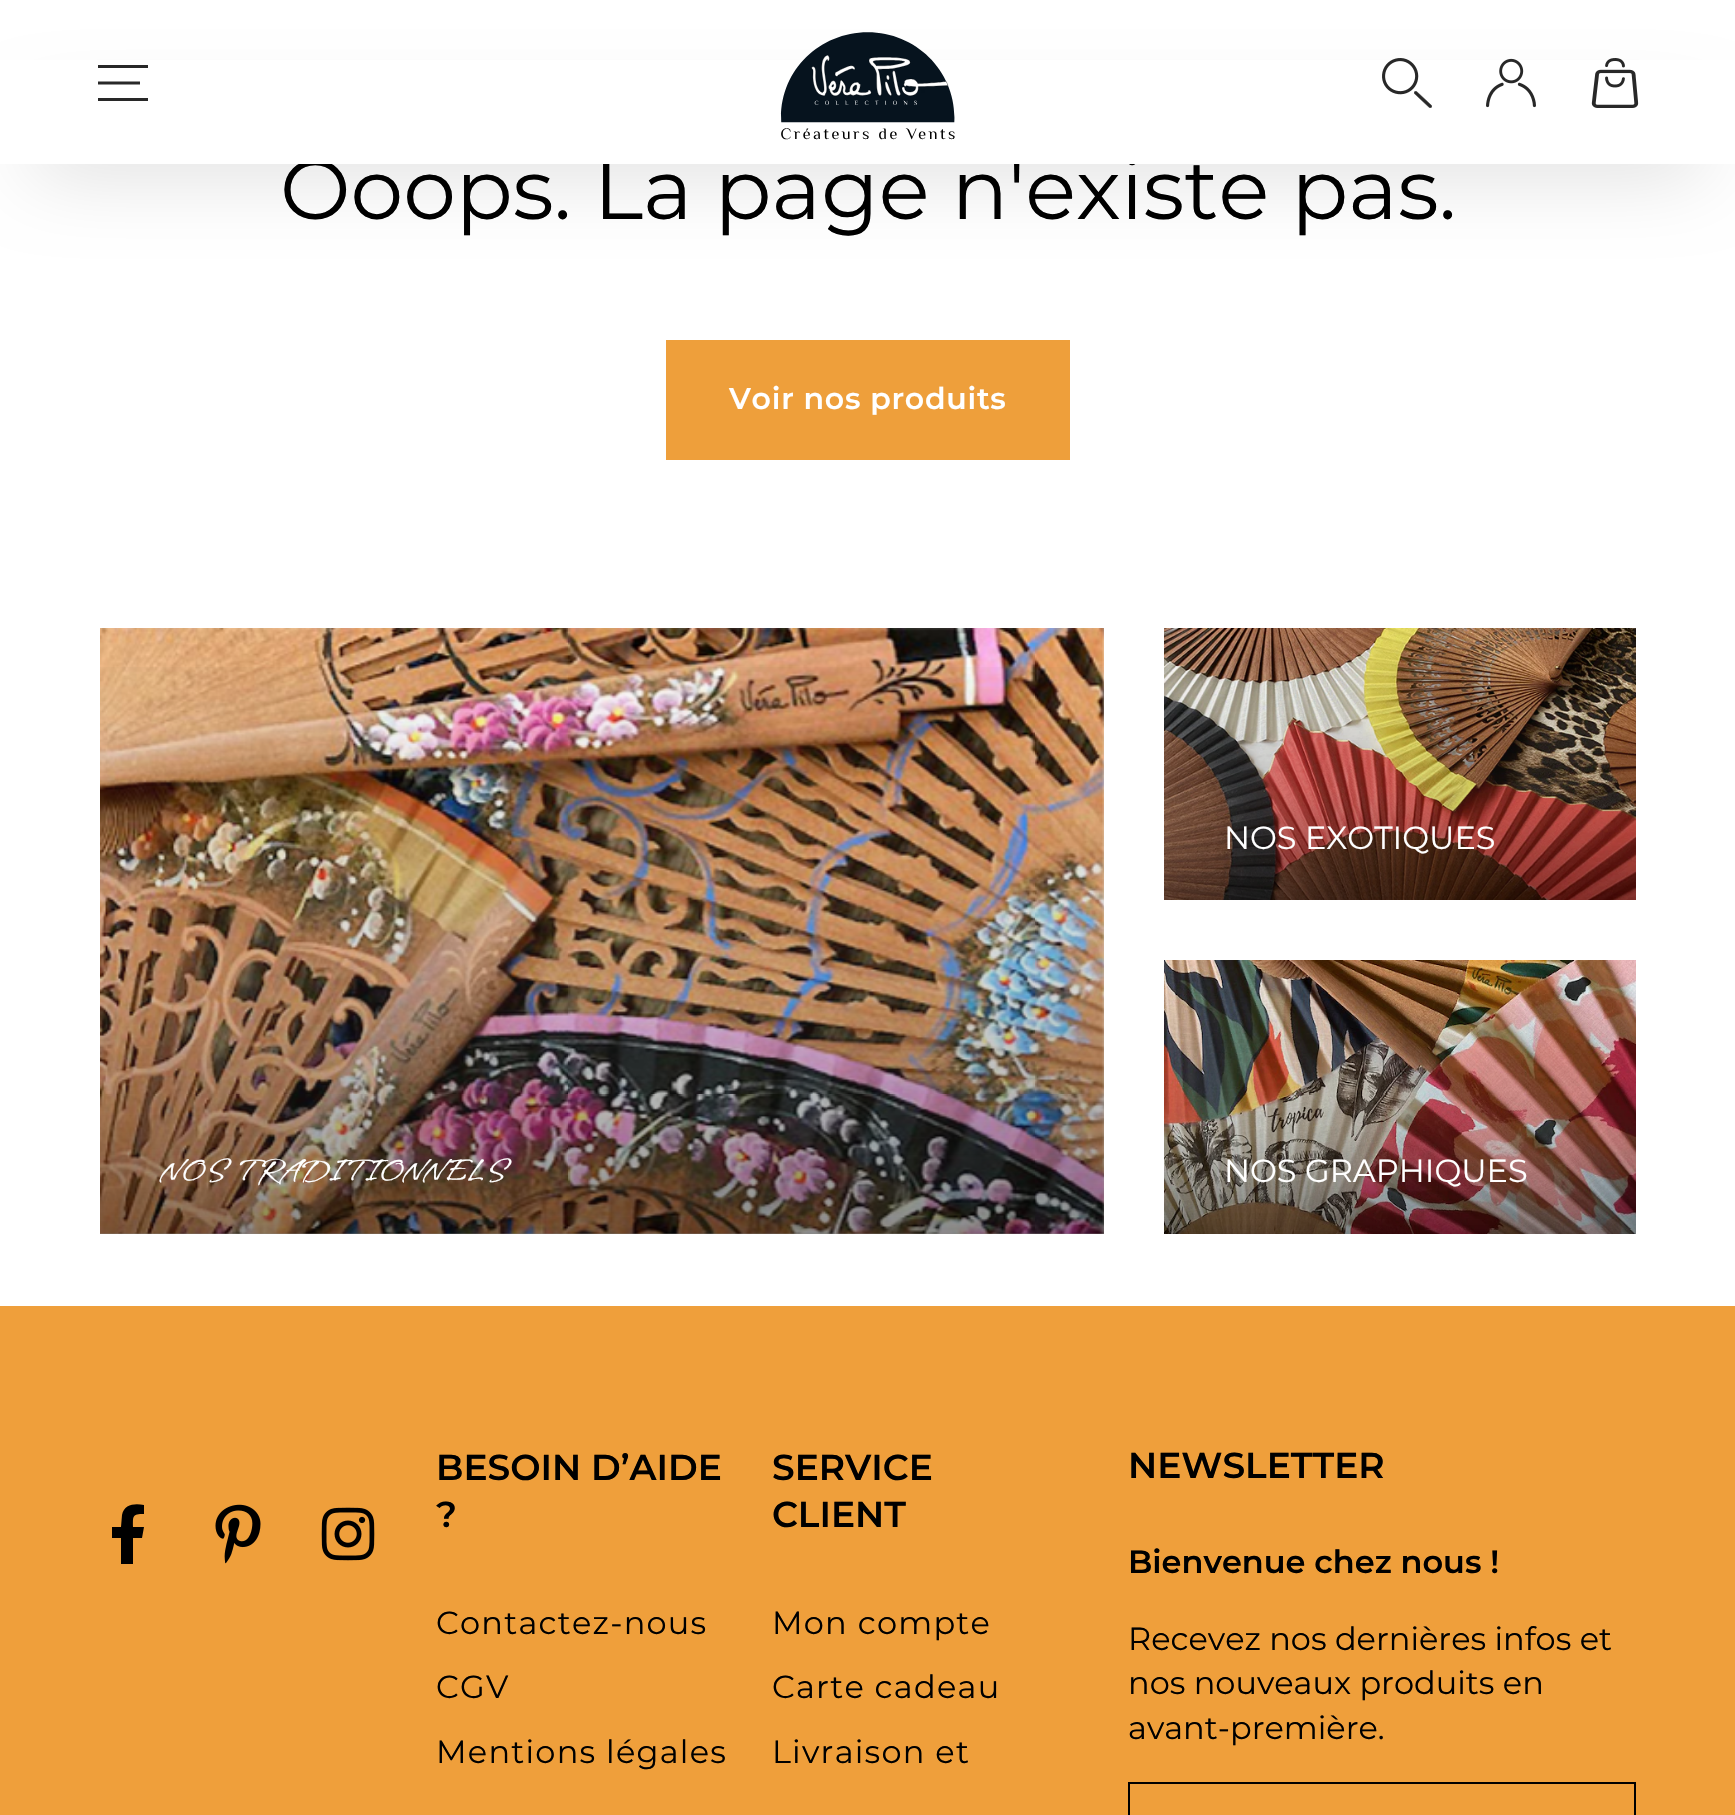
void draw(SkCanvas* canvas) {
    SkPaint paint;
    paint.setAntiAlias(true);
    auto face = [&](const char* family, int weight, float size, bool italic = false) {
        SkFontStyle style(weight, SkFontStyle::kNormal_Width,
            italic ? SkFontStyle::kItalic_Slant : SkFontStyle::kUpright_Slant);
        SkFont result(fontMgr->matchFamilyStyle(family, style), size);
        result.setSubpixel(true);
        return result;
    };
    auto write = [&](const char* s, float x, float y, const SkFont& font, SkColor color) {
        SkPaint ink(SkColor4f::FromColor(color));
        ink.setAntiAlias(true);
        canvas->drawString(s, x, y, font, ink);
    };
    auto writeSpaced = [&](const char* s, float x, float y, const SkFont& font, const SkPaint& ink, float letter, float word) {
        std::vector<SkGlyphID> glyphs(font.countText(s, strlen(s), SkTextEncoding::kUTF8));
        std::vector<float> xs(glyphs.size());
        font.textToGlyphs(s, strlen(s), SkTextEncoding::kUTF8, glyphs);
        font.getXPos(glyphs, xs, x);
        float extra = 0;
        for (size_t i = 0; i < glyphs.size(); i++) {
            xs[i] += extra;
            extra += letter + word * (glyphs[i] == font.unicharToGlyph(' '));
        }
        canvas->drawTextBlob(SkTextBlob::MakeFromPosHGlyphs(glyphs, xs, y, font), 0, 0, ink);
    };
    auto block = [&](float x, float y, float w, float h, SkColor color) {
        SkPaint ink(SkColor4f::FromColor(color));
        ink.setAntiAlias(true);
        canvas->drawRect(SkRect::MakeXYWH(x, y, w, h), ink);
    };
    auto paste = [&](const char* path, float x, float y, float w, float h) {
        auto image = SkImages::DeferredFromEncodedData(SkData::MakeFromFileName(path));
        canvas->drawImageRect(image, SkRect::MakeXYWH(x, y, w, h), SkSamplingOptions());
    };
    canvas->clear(SK_ColorWHITE);
    paint.setColor(SkColorSetARGB(51, 0, 0, 0));
    paint.setMaskFilter(SkMaskFilter::MakeBlur(kNormal_SkBlurStyle, 40));
    canvas->drawRoundRect(SkRect::MakeXYWH(30, 124, 1676, 40), 20, 20, paint);
    paint.setMaskFilter(nullptr);
    auto kFont1 = face("Montserrat", 400, 84);
    write("Ooops. La page n'existe pas.", 280, 219, kFont1, SK_ColorBLACK);
    block(0, 60, 1735, 104, SK_ColorWHITE);
    paste("pic1.png", 780, 32, 175, 108);
    paste("pic2.png", 1382, 58, 50, 50);
    paste("pic3.png", 1486, 58, 50, 50);
    paste("pic4.png", 1591, 58, 48, 50);
    paint.setStyle(SkPaint::kStroke_Style);
    paint.setStrokeWidth(2.8f);
    paint.setColor(SkColorSetRGB(40, 40, 40));
    canvas->drawPath(SkPathBuilder().moveTo(98, 99.5f).lineTo(148, 99.5f).moveTo(98, 83).lineTo(140, 83).moveTo(98, 66.5f).lineTo(148, 66.5f).detach(), paint);
    block(666, 340, 404, 120, SkColorSetRGB(238, 159, 59));
    auto kFont2 = face("Montserrat", 600, 30);
    paint.setStyle(SkPaint::kFill_Style);
    paint.setColor(SK_ColorWHITE);
    writeSpaced("Voir nos produits", 729, 409, kFont2, paint, 0.75f, 0);
    paste("pic5.png", 1164, 628, 472, 272);
    auto kFont3 = face("Montserrat", 400, 32);
    write("NOS EXOTIQUES", 1224, 849, kFont3, SK_ColorWHITE);
    block(100, 628, 1004, 606, SkColorSetRGB(252, 248, 237));
    paste("pic6.png", 100, 628, 1004, 606);
    {
        const SkColor colors[] = {SkColorSetARGB(117, 4, 4, 4), SkColorSetARGB(51, 54, 54, 54), SkColorSetARGB(0, 54, 54, 54)};
        const float stops[] = {0, 0.4f, 1};
        const SkPoint ends[] = {{602, 1234}, {602, 628}};
        paint.setShader(SkGradientShader::MakeLinear(ends, colors, stops, 3, SkTileMode::kClamp));
        paint.setAlpha(255);
    }
    canvas->drawRect(SkRect::MakeXYWH(100, 667, 1004, 567), paint);
    auto kFont4 = face("Vujahday Script", 400, 32);
    write("NOS TRADITIONNELS", 160, 1180, kFont4, SK_ColorWHITE);
    paste("pic7.png", 1164, 960, 472, 274);
    write("NOS GRAPHIQUES", 1224, 1182, kFont3, SK_ColorWHITE);
    block(0, 1306, 1735, 509, SkColorSetRGB(239, 159, 59));
    paint.setShader(nullptr);
    paint.setColor(SK_ColorBLACK);
    canvas->drawPath(SkPathBuilder().moveTo(142, 1538).lineTo(144, 1527).lineTo(133, 1527).cubicTo(133, 1516, 132, 1514, 144, 1514).lineTo(144, 1505).cubicTo(135, 1503, 124, 1504, 122, 1515).lineTo(121, 1527).lineTo(112, 1527).lineTo(112, 1538).lineTo(121, 1538).lineTo(121, 1564).lineTo(133, 1564).lineTo(133, 1538).close().detach(), paint);
    paste("pic8.png", 215, 1504, 46, 60);
    paste("pic9.png", 321, 1507, 54, 54);
    auto kFont5 = face("Montserrat", 600, 36);
    write("BESOIN D’AIDE", 436, 1480, kFont5, SK_ColorBLACK);
    write("?", 436, 1527, kFont5, SK_ColorBLACK);
    writeSpaced("Contactez-nous", 436, 1634, kFont3, paint, 1.25f, 0);
    writeSpaced("CGV", 436, 1698, kFont3, paint, 1.25f, 0);
    writeSpaced("Mentions légales", 436, 1763, kFont3, paint, 1.25f, 0);
    write("SERVICE", 772, 1480, kFont5, SK_ColorBLACK);
    write("CLIENT", 772, 1527, kFont5, SK_ColorBLACK);
    writeSpaced("Mon compte", 772, 1634, kFont3, paint, 1.25f, 0);
    writeSpaced("Carte cadeau", 772, 1698, kFont3, paint, 1.25f, 0);
    writeSpaced("Livraison et", 772, 1763, kFont3, paint, 1.25f, 0);
    write("NEWSLETTER", 1128, 1478, kFont5, SK_ColorBLACK);
    auto kFont6 = face("Montserrat", 600, 32);
    write("Bienvenue chez nous !", 1128, 1573, kFont6, SK_ColorBLACK);
    write("Recevez nos dernières infos et", 1128, 1650, kFont3, SK_ColorBLACK);
    write("nos nouveaux produits en", 1128, 1694, kFont3, SK_ColorBLACK);
    write("avant-première.", 1128, 1739, kFont3, SK_ColorBLACK);
    paint.setStyle(SkPaint::kStroke_Style);
    paint.setStrokeWidth(2);
    canvas->drawRect(SkRect::MakeXYWH(1129, 1783, 506, 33), paint);
}
